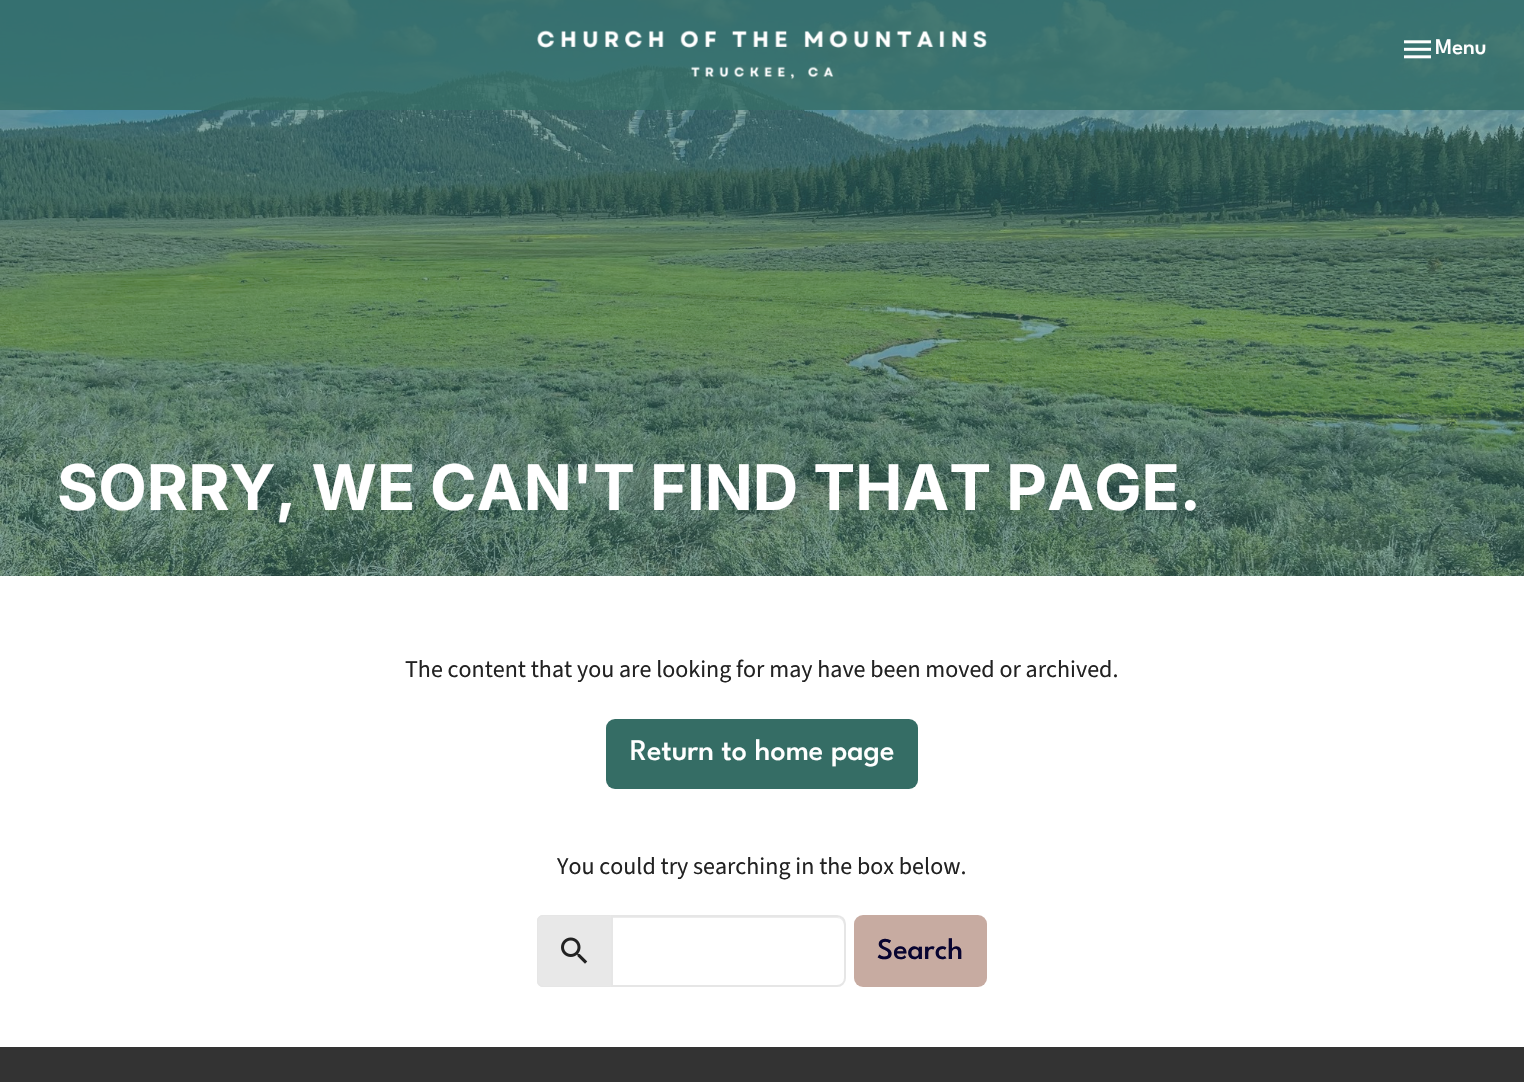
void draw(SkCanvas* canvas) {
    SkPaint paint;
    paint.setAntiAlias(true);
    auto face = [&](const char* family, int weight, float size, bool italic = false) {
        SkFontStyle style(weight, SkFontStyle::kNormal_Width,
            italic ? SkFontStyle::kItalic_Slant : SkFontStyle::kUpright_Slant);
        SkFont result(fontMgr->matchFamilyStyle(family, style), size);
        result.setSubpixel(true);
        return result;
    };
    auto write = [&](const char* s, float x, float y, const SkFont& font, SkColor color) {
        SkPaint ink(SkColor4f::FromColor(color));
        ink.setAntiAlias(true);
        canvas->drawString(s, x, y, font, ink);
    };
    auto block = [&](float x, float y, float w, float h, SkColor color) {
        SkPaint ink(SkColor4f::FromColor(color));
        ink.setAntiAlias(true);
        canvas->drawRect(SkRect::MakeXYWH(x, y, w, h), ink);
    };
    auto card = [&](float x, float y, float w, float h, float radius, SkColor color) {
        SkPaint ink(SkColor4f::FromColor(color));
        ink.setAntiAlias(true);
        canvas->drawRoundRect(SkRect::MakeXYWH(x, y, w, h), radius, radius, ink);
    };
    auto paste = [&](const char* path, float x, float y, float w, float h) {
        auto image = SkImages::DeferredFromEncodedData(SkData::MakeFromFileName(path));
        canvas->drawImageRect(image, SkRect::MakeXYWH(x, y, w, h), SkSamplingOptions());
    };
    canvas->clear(SK_ColorWHITE);
    paste("pic3.png", 0, 0, 1524, 576);
    block(0, 0, 1524, 110, SkColorSetARGB(204, 53, 109, 101));
    paste("pic1.png", 537, 30, 450, 50);
    paste("pic2.png", 1404, 40, 27, 19);
    auto kFont1 = face("League Spartan", 500, 22.5f);
    write("Menu", 1435, 54, kFont1, SK_ColorWHITE);
    auto kFont2 = face("Inter", 700, 63);
    write("SORRY, WE CAN'T FIND THAT PAGE.", 57, 510, kFont2, SK_ColorWHITE);
    auto kFont3 = face("Source Sans 3", 400, 24);
    write("The content that you are looking for may have been moved or archived.", 405, 677, kFont3, SkColorSetRGB(34, 34, 34));
    card(606, 719, 312, 70, 9, SkColorSetRGB(53, 109, 101));
    auto kFont4 = face("League Spartan", 500, 30);
    write("Return to home page", 630, 760, kFont4, SK_ColorWHITE);
    write("You could try searching in the box below.", 557, 874, kFont3, SkColorSetRGB(34, 34, 34));
    paint.setColor(SkColorSetRGB(232, 232, 232));
    canvas->drawPath(SkPathBuilder().moveTo(543, 915).lineTo(611, 915).lineTo(611, 987).lineTo(543, 987).cubicTo(539.5f, 987, 537, 984.5f, 537, 981).lineTo(537, 921).cubicTo(537, 917.5f, 539.5f, 915, 543, 915).close().detach(), paint);
    paint.setColor(SkColorSetRGB(230, 230, 230));
    canvas->drawPath(SkPathBuilder(SkPathFillType::kEvenOdd).moveTo(543, 915).lineTo(610, 915).lineTo(610, 987).lineTo(543, 987).cubicTo(540, 987, 537, 984, 537, 981).lineTo(537, 921).cubicTo(537, 918, 540, 915, 543, 915).close().moveTo(543, 916).lineTo(610, 916).lineTo(610, 986).lineTo(543, 986).cubicTo(541, 986, 538, 983, 538, 981).lineTo(538, 921).cubicTo(538, 919, 541, 916, 543, 916).close().detach(), paint);
    paste("pic4.png", 561, 937, 27, 27);
    paint.setColor(SkColorSetRGB(236, 236, 236));
    canvas->drawPath(SkPathBuilder().moveTo(612, 918).lineTo(837, 918).cubicTo(841, 918, 844, 921, 844, 926).lineTo(844, 980).lineTo(844, 983).cubicTo(844, 981, 845, 980, 845, 978).lineTo(845, 925).cubicTo(845, 921, 841, 917, 837, 917).lineTo(612, 917).close().detach(), paint);
    paint.setStyle(SkPaint::kStroke_Style);
    paint.setStrokeWidth(2);
    paint.setColor(SkColorSetRGB(230, 230, 230));
    canvas->drawPath(SkPathBuilder().moveTo(612, 916).lineTo(837, 916).cubicTo(841.5f, 916, 845, 919.5f, 845, 924).lineTo(845, 978).cubicTo(845, 982.5f, 841.5f, 986, 837, 986).lineTo(612, 986).close().detach(), paint);
    card(854, 915, 133, 72, 9, SkColorSetRGB(199, 171, 161));
    write("Search", 877, 959, kFont4, SkColorSetRGB(8, 4, 48));
    block(0, 1047, 1524, 35, SkColorSetRGB(51, 51, 51));
}
